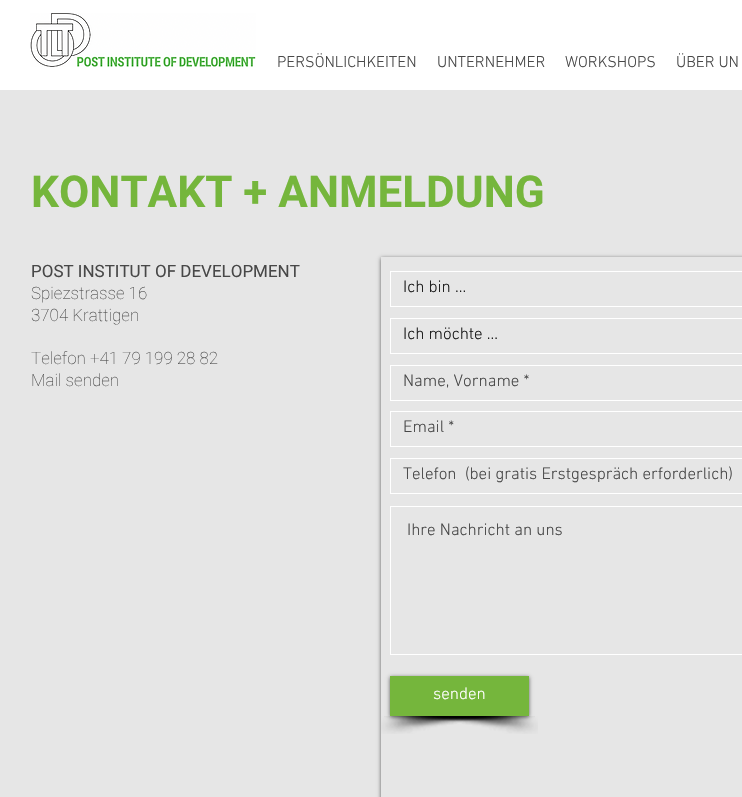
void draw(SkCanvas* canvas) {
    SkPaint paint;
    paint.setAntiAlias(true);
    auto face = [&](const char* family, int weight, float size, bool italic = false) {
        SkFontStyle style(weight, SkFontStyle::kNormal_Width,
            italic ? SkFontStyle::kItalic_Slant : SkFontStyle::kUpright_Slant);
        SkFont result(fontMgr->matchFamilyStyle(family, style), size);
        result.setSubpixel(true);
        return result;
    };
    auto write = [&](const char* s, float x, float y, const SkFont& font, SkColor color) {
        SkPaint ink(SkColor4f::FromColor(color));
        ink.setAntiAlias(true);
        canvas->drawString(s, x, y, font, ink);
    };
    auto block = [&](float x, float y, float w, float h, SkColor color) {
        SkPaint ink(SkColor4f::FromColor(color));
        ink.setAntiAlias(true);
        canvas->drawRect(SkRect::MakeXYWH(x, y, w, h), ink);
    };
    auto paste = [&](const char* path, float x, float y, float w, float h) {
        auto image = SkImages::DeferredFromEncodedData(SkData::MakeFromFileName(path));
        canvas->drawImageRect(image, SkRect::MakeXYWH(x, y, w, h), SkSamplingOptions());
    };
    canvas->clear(SK_ColorWHITE);
    paste("pic1.png", 30, 13, 226, 54);
    auto kFont1 = face("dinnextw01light", 300, 16);
    write("PERSÖNLICHKEITEN", 277, 67, kFont1, SkColorSetRGB(72, 72, 72));
    write("UNTERNEHMER", 437, 67, kFont1, SkColorSetRGB(72, 72, 72));
    write("WORKSHOPS", 565, 67, kFont1, SkColorSetRGB(72, 72, 72));
    write("ÜBER UN", 676, 67, kFont1, SkColorSetRGB(72, 72, 72));
    block(0, 90, 742, 707, SkColorSetRGB(230, 230, 230));
    auto kFont2 = face("Roboto", 700, 44);
    write("KONTAKT + ANMELDUNG", 31, 207, kFont2, SkColorSetRGB(117, 182, 60));
    auto kFont3 = face("Roboto", 400, 17);
    write("POST INSTITUT OF DEVELOPMENT", 31, 277, kFont3, SkColorSetRGB(72, 72, 72));
    auto kFont4 = face("Roboto", 100, 17);
    write("Spiezstrasse 16", 31, 299, kFont4, SkColorSetRGB(72, 72, 72));
    write("3704 Krattigen", 31, 321, kFont4, SkColorSetRGB(72, 72, 72));
    write("Telefon +41 79 199 28 82", 31, 364, kFont4, SkColorSetRGB(72, 72, 72));
    write("Mail senden", 31, 386, kFont4, SkColorSetRGB(72, 72, 72));
    canvas->save();
    canvas->clipPath(SkPathBuilder(SkPathFillType::kEvenOdd).moveTo(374, 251).lineTo(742, 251).lineTo(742, 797).lineTo(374, 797).close().moveTo(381, 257).lineTo(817, 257).lineTo(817, 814).lineTo(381, 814).close().detach(), true);
    paint.setColor(SkColorSetARGB(153, 0, 0, 0));
    paint.setMaskFilter(SkMaskFilter::MakeBlur(kNormal_SkBlurStyle, 2));
    canvas->drawRect(SkRect::MakeXYWH(381, 258, 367, 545), paint);
    paint.setMaskFilter(nullptr);
    canvas->restore();
    paint.setStyle(SkPaint::kStroke_Style);
    paint.setStrokeWidth(1);
    paint.setColor(SK_ColorWHITE);
    canvas->drawRect(SkRect::MakeXYWH(390.5f, 271.5f, 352, 35), paint);
    auto kFont5 = face("dinnextw01light", 300, 17);
    write("Ich bin ...", 403, 292, kFont5, SkColorSetRGB(26, 26, 26));
    canvas->drawRect(SkRect::MakeXYWH(390.5f, 318.5f, 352, 35), paint);
    write("Ich möchte ...", 403, 339, kFont5, SkColorSetRGB(26, 26, 26));
    canvas->drawRect(SkRect::MakeXYWH(390.5f, 365.5f, 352, 35), paint);
    write("Name, Vorname *", 403, 386, kFont5, SkColorSetRGB(72, 72, 72));
    canvas->drawRect(SkRect::MakeXYWH(390.5f, 411.5f, 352, 35), paint);
    write("Email *", 403, 432, kFont5, SkColorSetRGB(72, 72, 72));
    canvas->drawRect(SkRect::MakeXYWH(390.5f, 458.5f, 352, 35), paint);
    write("Telefon  (bei gratis Erstgespräch erforderlich)", 403, 479, kFont5, SkColorSetRGB(72, 72, 72));
    canvas->drawRect(SkRect::MakeXYWH(390.5f, 506.5f, 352, 148), paint);
    write("Ihre Nachricht an uns", 407, 535, kFont5, SkColorSetRGB(72, 72, 72));
    paste("pic2.png", 381, 716, 154, 18);
    paste("pic3.png", 384, 716, 154, 18);
    paint.setStyle(SkPaint::kFill_Style);
    paint.setColor(SkColorSetARGB(153, 0, 0, 0));
    paint.setMaskFilter(SkMaskFilter::MakeBlur(kNormal_SkBlurStyle, 2));
    canvas->drawRect(SkRect::MakeXYWH(390, 677, 139, 40), paint);
    paint.setMaskFilter(nullptr);
    block(390, 676, 139, 40, SkColorSetRGB(117, 182, 60));
    write("senden", 433, 699, kFont5, SK_ColorWHITE);
}
